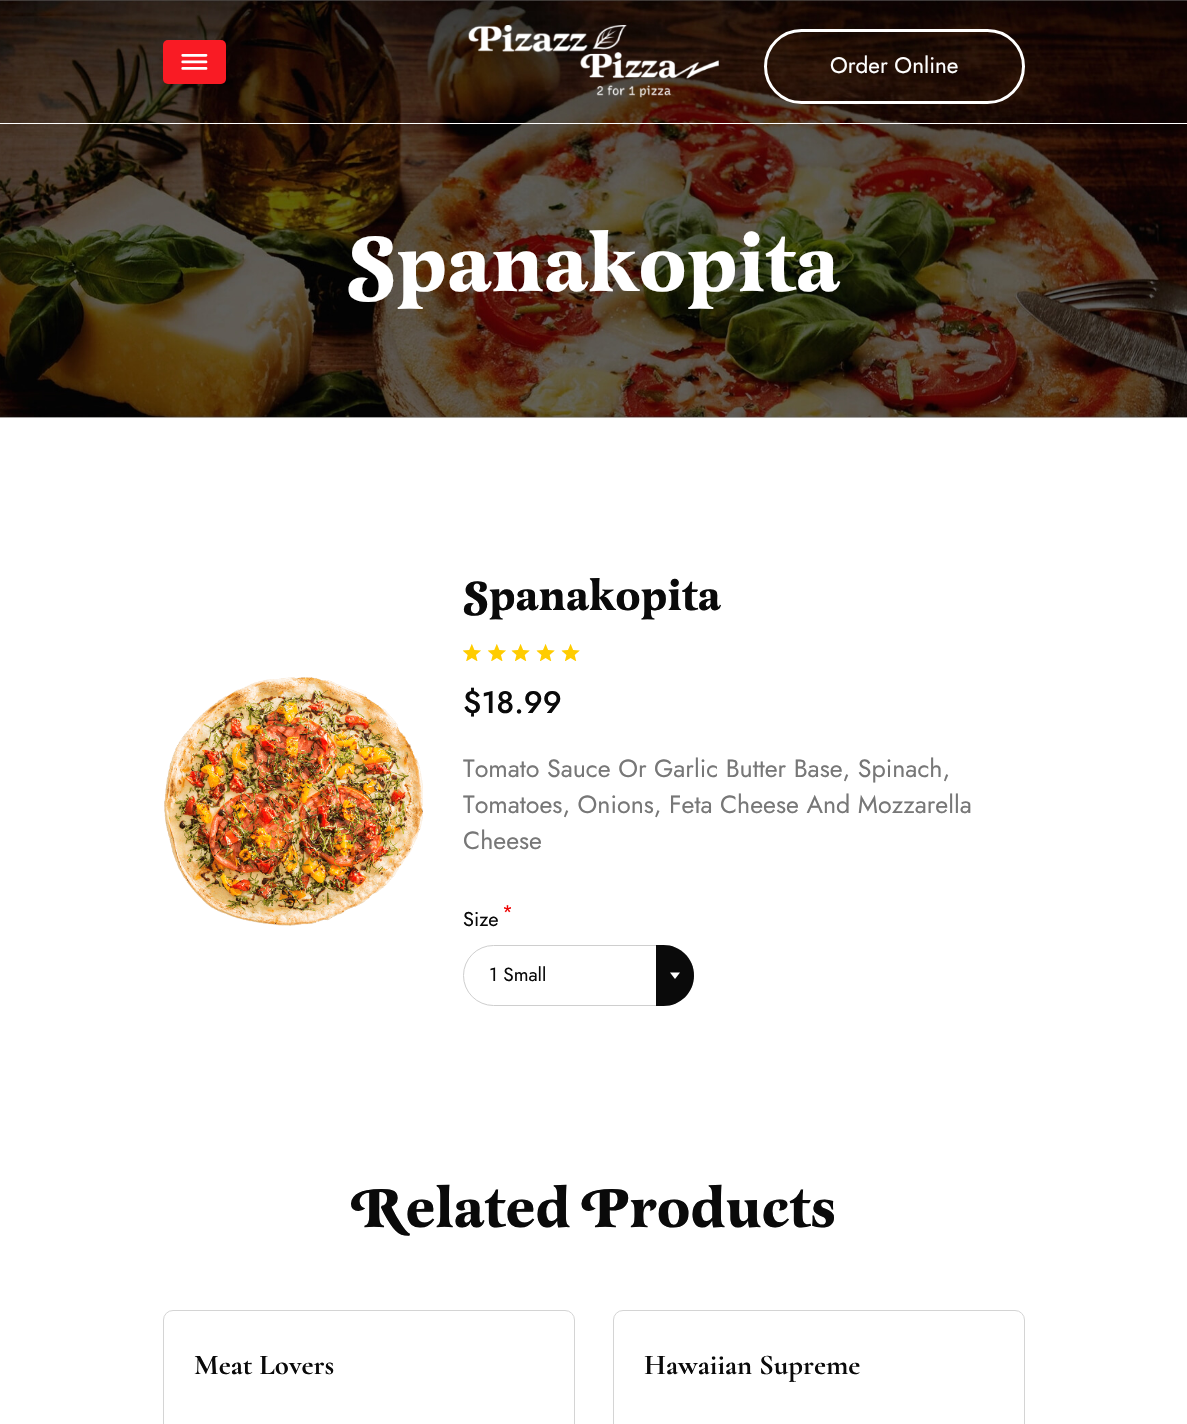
void draw(SkCanvas* canvas) {
    SkPaint paint;
    paint.setAntiAlias(true);
    auto face = [&](const char* family, int weight, float size, bool italic = false) {
        SkFontStyle style(weight, SkFontStyle::kNormal_Width,
            italic ? SkFontStyle::kItalic_Slant : SkFontStyle::kUpright_Slant);
        SkFont result(fontMgr->matchFamilyStyle(family, style), size);
        result.setSubpixel(true);
        return result;
    };
    auto write = [&](const char* s, float x, float y, const SkFont& font, SkColor color) {
        SkPaint ink(SkColor4f::FromColor(color));
        ink.setAntiAlias(true);
        canvas->drawString(s, x, y, font, ink);
    };
    auto block = [&](float x, float y, float w, float h, SkColor color) {
        SkPaint ink(SkColor4f::FromColor(color));
        ink.setAntiAlias(true);
        canvas->drawRect(SkRect::MakeXYWH(x, y, w, h), ink);
    };
    auto card = [&](float x, float y, float w, float h, float radius, SkColor color) {
        SkPaint ink(SkColor4f::FromColor(color));
        ink.setAntiAlias(true);
        canvas->drawRoundRect(SkRect::MakeXYWH(x, y, w, h), radius, radius, ink);
    };
    auto paste = [&](const char* path, float x, float y, float w, float h) {
        auto image = SkImages::DeferredFromEncodedData(SkData::MakeFromFileName(path));
        canvas->drawImageRect(image, SkRect::MakeXYWH(x, y, w, h), SkSamplingOptions());
    };
    canvas->clear(SK_ColorWHITE);
    paste("pic1.png", 0, 0, 1187, 418);
    block(0, 123, 1187, 1, SK_ColorWHITE);
    card(163, 40, 63, 44, 5, SkColorSetRGB(249, 27, 36));
    paste("pic2.png", 181, 54, 27, 16);
    paste("pic3.png", 468, 25, 251, 73);
    paint.setStyle(SkPaint::kStroke_Style);
    paint.setStrokeWidth(3);
    paint.setColor(SK_ColorWHITE);
    canvas->drawRoundRect(SkRect::MakeXYWH(765.5f, 30.5f, 258, 72), 36, 36, paint);
    auto kFont1 = face("Jost", 400, 22.5f);
    write("Order Online", 830, 73, kFont1, SK_ColorWHITE);
    auto kFont2 = face("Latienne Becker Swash", 700, 81.25f);
    write("Spanakopita", 347, 291, kFont2, SK_ColorWHITE);
    paste("pic4.png", 164, 677, 259, 249);
    auto kFont3 = face("Latienne Becker Swash", 700, 42.5f);
    write("Spanakopita", 463, 610, kFont3, SkColorSetRGB(10, 10, 10));
    paste("pic5.png", 462, 644, 19, 17);
    paste("pic5.png", 487, 644, 19, 17);
    paste("pic6.png", 511, 644, 19, 17);
    paste("pic6.png", 536, 644, 19, 17);
    paste("pic6.png", 561, 644, 19, 17);
    auto kFont4 = face("Jost", 500, 31);
    write("$18.99", 463, 713, kFont4, SkColorSetRGB(10, 10, 10));
    auto kFont5 = face("Jost", 400, 25);
    write("Tomato Sauce Or Garlic Butter Base, Spinach,", 463, 777, kFont5, SkColorSetRGB(119, 119, 119));
    write("Tomatoes, Onions, Feta Cheese And Mozzarella", 463, 813, kFont5, SkColorSetRGB(119, 119, 119));
    write("Cheese", 463, 849, kFont5, SkColorSetRGB(119, 119, 119));
    paste("pic7.png", 504, 905, 7, 8);
    auto kFont6 = face("Jost", 400, 20);
    write("Size", 463, 926, kFont6, SkColorSetRGB(10, 10, 10));
    paint.setStrokeWidth(1);
    paint.setColor(SkColorSetRGB(206, 206, 206));
    canvas->drawRoundRect(SkRect::MakeXYWH(463.5f, 945.5f, 230, 60), 30, 30, paint);
    auto kFont7 = face("Jost", 400, 19);
    write("1 Small", 489, 981, kFont7, SkColorSetRGB(10, 10, 10));
    paint.setStyle(SkPaint::kFill_Style);
    paint.setColor(SkColorSetRGB(10, 10, 10));
    canvas->drawPath(SkPathBuilder().moveTo(656, 945).lineTo(663.5f, 945).cubicTo(680.5f, 945, 694, 958.5f, 694, 975.5f).cubicTo(694, 992.5f, 680.5f, 1006, 663.5f, 1006).lineTo(656, 1006).close().detach(), paint);
    paint.setColor(SK_ColorWHITE);
    canvas->drawPath(SkPathBuilder().moveTo(670, 972.5f).lineTo(680, 972.5f).lineTo(675, 979).close().detach(), paint);
    auto kFont8 = face("Latienne Becker Swash", 700, 56.25f);
    write("Related Products", 351, 1227, kFont8, SkColorSetRGB(10, 10, 10));
    paint.setStyle(SkPaint::kStroke_Style);
    paint.setColor(SkColorSetRGB(212, 212, 212));
    canvas->drawRoundRect(SkRect::MakeXYWH(163.5f, 1310.5f, 411, 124), 9.5f, 9.5f, paint);
    auto kFont9 = face("Cormorant Garamond", 700, 28.75f);
    write("Meat Lovers", 194, 1374, kFont9, SkColorSetRGB(10, 10, 10));
    canvas->drawRoundRect(SkRect::MakeXYWH(613.5f, 1310.5f, 411, 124), 9.5f, 9.5f, paint);
    write("Hawaiian Supreme", 644, 1374, kFont9, SkColorSetRGB(10, 10, 10));
}
